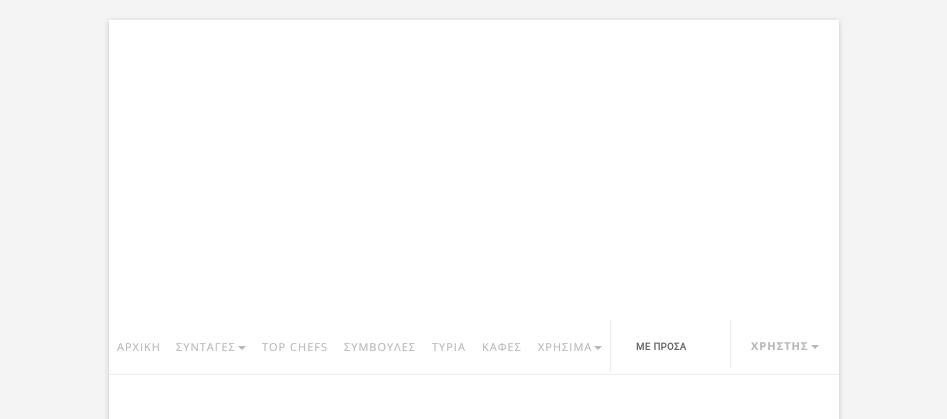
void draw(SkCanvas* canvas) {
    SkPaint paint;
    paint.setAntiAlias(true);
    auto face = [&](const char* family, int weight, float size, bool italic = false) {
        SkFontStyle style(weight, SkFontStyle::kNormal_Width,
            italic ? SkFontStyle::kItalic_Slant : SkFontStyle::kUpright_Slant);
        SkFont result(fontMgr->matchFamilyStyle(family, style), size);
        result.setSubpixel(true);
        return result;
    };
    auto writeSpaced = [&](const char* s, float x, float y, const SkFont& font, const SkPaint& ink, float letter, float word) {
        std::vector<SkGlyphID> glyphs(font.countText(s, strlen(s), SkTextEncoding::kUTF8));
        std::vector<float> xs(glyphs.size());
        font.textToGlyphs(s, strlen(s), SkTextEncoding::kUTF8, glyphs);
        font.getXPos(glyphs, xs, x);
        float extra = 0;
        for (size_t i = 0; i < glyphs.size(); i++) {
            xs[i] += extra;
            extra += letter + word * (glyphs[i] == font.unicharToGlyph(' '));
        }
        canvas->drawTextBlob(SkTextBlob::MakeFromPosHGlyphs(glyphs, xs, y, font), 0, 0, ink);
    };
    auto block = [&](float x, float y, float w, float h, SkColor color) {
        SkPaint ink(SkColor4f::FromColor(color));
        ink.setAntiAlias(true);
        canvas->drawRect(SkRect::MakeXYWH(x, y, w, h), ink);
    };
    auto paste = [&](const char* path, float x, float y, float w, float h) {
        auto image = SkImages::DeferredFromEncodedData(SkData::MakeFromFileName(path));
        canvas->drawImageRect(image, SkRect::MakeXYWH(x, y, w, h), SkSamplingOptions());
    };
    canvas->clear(SkColorSetRGB(244, 244, 244));
    paint.setColor(SkColorSetARGB(51, 0, 0, 0));
    paint.setMaskFilter(SkMaskFilter::MakeBlur(kNormal_SkBlurStyle, 2.5f));
    canvas->drawRect(SkRect::MakeXYWH(109, 21, 730, 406), paint);
    paint.setMaskFilter(nullptr);
    block(109, 20, 730, 399, SK_ColorWHITE);
    block(109, 374, 730, 1, SkColorSetRGB(237, 237, 237));
    auto kFont1 = face("Open Sans", 400, 11);
    paint.setColor(SkColorSetRGB(183, 183, 183));
    writeSpaced("ΑΡΧΙΚΗ", 117, 351, kFont1, paint, 1, 0);
    writeSpaced("ΣΥΝΤΑΓΕΣ", 176, 351, kFont1, paint, 1, 0);
    canvas->drawPath(SkPathBuilder().moveTo(238, 346).lineTo(246, 346).lineTo(242, 350).close().detach(), paint);
    writeSpaced("TOP CHEFS", 262, 351, kFont1, paint, 1, 0);
    writeSpaced("ΣΥΜΒΟΥΛΕΣ", 344, 351, kFont1, paint, 1, 0);
    writeSpaced("ΤΥΡΙΑ", 432, 351, kFont1, paint, 1, 0);
    writeSpaced("ΚΑΦΕΣ", 482, 351, kFont1, paint, 1, 0);
    writeSpaced("ΧΡΗΣΙΜΑ", 538, 351, kFont1, paint, 1, 0);
    canvas->drawPath(SkPathBuilder().moveTo(594, 346).lineTo(602, 346).lineTo(598, 350).close().detach(), paint);
    block(610, 320, 1, 53, SkColorSetRGB(237, 237, 237));
    paste("pic1.png", 636, 342, 51, 8);
    block(730, 320, 1, 48, SkColorSetRGB(237, 237, 237));
    auto kFont2 = face("Open Sans", 700, 11);
    writeSpaced("ΧΡΗΣΤΗΣ", 751, 350, kFont2, paint, 1, 0);
    canvas->drawPath(SkPathBuilder().moveTo(811, 345).lineTo(819, 345).lineTo(815, 349).close().detach(), paint);
}
